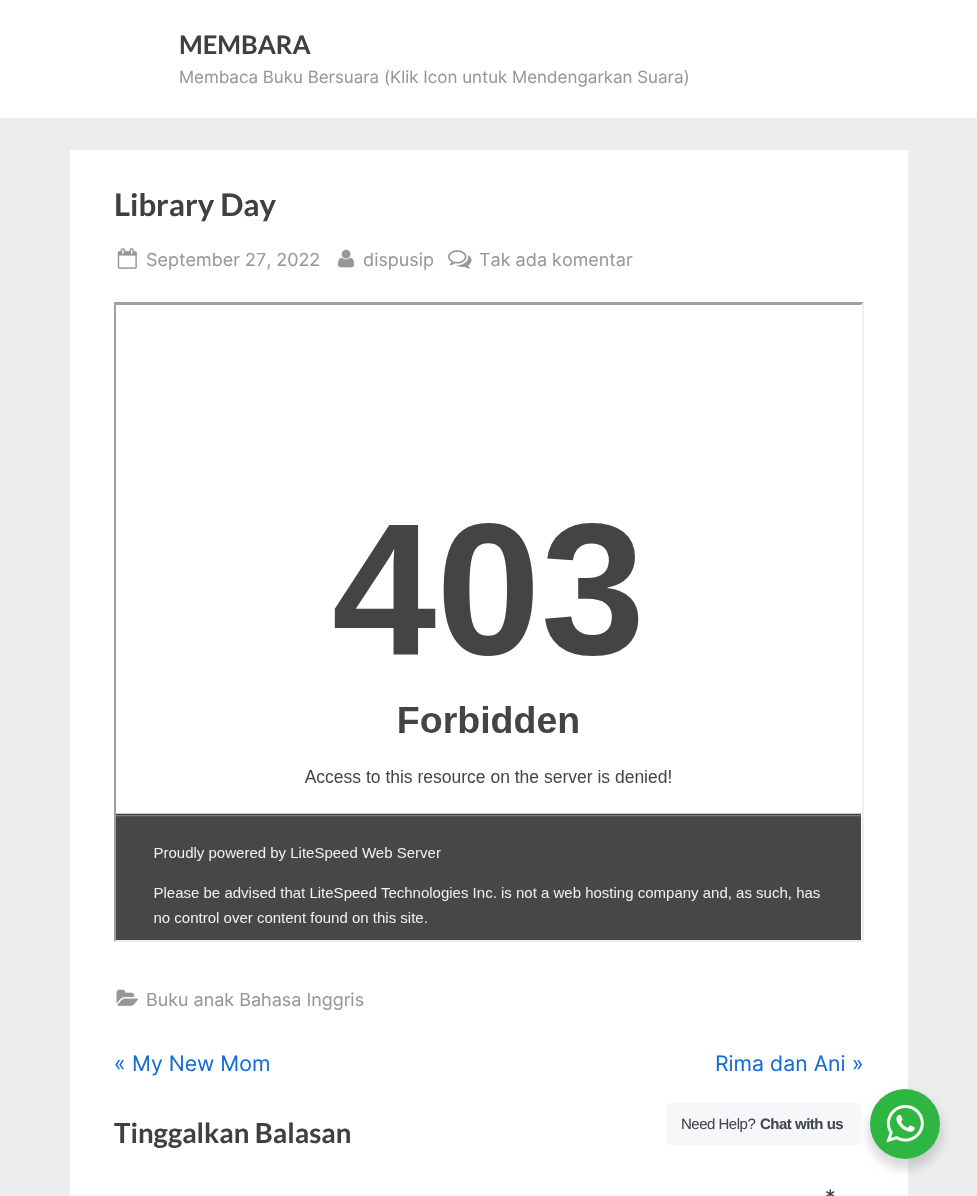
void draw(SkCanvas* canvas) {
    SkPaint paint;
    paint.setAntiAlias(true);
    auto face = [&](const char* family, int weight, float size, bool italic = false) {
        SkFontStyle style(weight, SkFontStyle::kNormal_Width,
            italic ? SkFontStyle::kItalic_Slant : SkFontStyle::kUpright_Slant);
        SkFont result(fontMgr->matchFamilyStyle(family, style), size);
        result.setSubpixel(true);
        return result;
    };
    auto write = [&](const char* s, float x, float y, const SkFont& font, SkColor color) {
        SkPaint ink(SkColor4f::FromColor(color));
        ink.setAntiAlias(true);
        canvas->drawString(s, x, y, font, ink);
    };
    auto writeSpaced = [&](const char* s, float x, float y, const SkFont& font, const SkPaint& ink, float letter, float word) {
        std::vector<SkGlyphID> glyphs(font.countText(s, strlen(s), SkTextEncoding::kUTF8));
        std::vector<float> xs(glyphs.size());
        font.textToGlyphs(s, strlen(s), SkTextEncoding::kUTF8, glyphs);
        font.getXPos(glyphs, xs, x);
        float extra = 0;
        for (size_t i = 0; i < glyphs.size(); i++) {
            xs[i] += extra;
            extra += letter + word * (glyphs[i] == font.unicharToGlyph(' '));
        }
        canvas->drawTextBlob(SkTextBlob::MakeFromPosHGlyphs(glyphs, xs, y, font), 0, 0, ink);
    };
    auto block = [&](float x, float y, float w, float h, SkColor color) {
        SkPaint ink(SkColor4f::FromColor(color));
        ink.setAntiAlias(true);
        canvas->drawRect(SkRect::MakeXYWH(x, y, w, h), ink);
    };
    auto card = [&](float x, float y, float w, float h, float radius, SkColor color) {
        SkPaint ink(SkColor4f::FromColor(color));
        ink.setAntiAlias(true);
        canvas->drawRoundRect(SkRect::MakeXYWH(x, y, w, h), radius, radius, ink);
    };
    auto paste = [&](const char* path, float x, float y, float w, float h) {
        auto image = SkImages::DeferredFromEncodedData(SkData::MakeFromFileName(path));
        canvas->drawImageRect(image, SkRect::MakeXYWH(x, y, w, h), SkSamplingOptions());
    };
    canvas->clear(SkColorSetRGB(237, 237, 237));
    block(0, 0, 977, 118, SK_ColorWHITE);
    auto kFont1 = face("Lato", 700, 25.5f);
    write("MEMBARA", 179, 54, kFont1, SkColorSetRGB(64, 64, 64));
    auto kFont2 = face("Inter", 400, 17);
    write("Membaca Buku Bersuara (Klik Icon untuk Mendengarkan Suara)", 179, 83, kFont2, SkColorSetRGB(151, 151, 151));
    block(70, 150, 838, 1046, SK_ColorWHITE);
    auto kFont3 = face("Lato", 700, 31);
    write("Library Day", 114, 216, kFont3, SkColorSetRGB(64, 64, 64));
    paste("pic1.png", 117, 248, 20, 21);
    auto kFont4 = face("Inter", 400, 18);
    write("September 27, 2022", 146, 266, kFont4, SkColorSetRGB(151, 151, 151));
    paste("pic2.png", 338, 249, 17, 19);
    write("dispusip", 363, 266, kFont4, SkColorSetRGB(151, 151, 151));
    paste("pic3.png", 448, 250, 24, 19);
    write("Tak ada komentar", 479, 266, kFont4, SkColorSetRGB(151, 151, 151));
    paint.setColor(SkColorSetRGB(159, 159, 159));
    canvas->drawPath(SkPathBuilder().moveTo(114, 302).lineTo(864, 302).lineTo(861, 305).lineTo(116, 305).close().detach(), paint);
    paint.setColor(SkColorSetRGB(238, 238, 238));
    canvas->drawPath(SkPathBuilder().moveTo(864, 302).lineTo(864, 942).lineTo(861, 940).lineTo(861, 305).close().detach(), paint);
    canvas->drawPath(SkPathBuilder().moveTo(864, 942).lineTo(114, 942).lineTo(116, 940).lineTo(861, 940).close().detach(), paint);
    paint.setColor(SkColorSetRGB(159, 159, 159));
    canvas->drawPath(SkPathBuilder().moveTo(114, 942).lineTo(114, 302).lineTo(116, 305).lineTo(116, 940).close().detach(), paint);
    paste("pic4.png", 116, 305, 746, 635);
    paste("pic5.png", 116, 989, 22, 17);
    write("Buku anak Bahasa Inggris", 146, 1006, kFont4, SkColorSetRGB(151, 151, 151));
    auto kFont5 = face("Inter", 400, 21.25f);
    write("«", 114, 1071, kFont5, SkColorSetRGB(22, 109, 214));
    write("My New Mom", 132, 1071, kFont5, SkColorSetRGB(22, 109, 214));
    write("Rima dan Ani", 715, 1071, kFont5, SkColorSetRGB(22, 109, 214));
    write("»", 852, 1071, kFont5, SkColorSetRGB(22, 109, 214));
    auto kFont6 = face("Lato", 700, 27.6f);
    write("Tinggalkan Balasan", 114, 1143, kFont6, SkColorSetRGB(64, 64, 64));
    write("*", 825, 1205, kFont5, SkColorSetRGB(64, 64, 64));
    paint.setColor(SkColorSetARGB(36, 0, 0, 0));
    paint.setMaskFilter(SkMaskFilter::MakeBlur(kNormal_SkBlurStyle, 5));
    canvas->drawRoundRect(SkRect::MakeXYWH(868, 1094, 75, 75), 37.5f, 37.5f, paint);
    paint.setMaskFilter(nullptr);
    card(666, 1103, 195, 42, 5, SkColorSetRGB(245, 247, 249));
    auto kFont7 = face("Liberation Sans", 400, 15);
    paint.setColor(SkColorSetRGB(67, 71, 78));
    writeSpaced("Need Help?", 681, 1129, kFont7, paint, -0.5f, 0);
    auto kFont8 = face("Liberation Sans", 700, 15);
    writeSpaced("Chat with us", 760, 1129, kFont8, paint, -0.5f, 0);
    paint.setColor(SkColorSetRGB(45, 183, 66));
    canvas->drawCircle(905, 1124, 35, paint);
    paste("pic6.png", 886, 1105, 38, 38);
}
